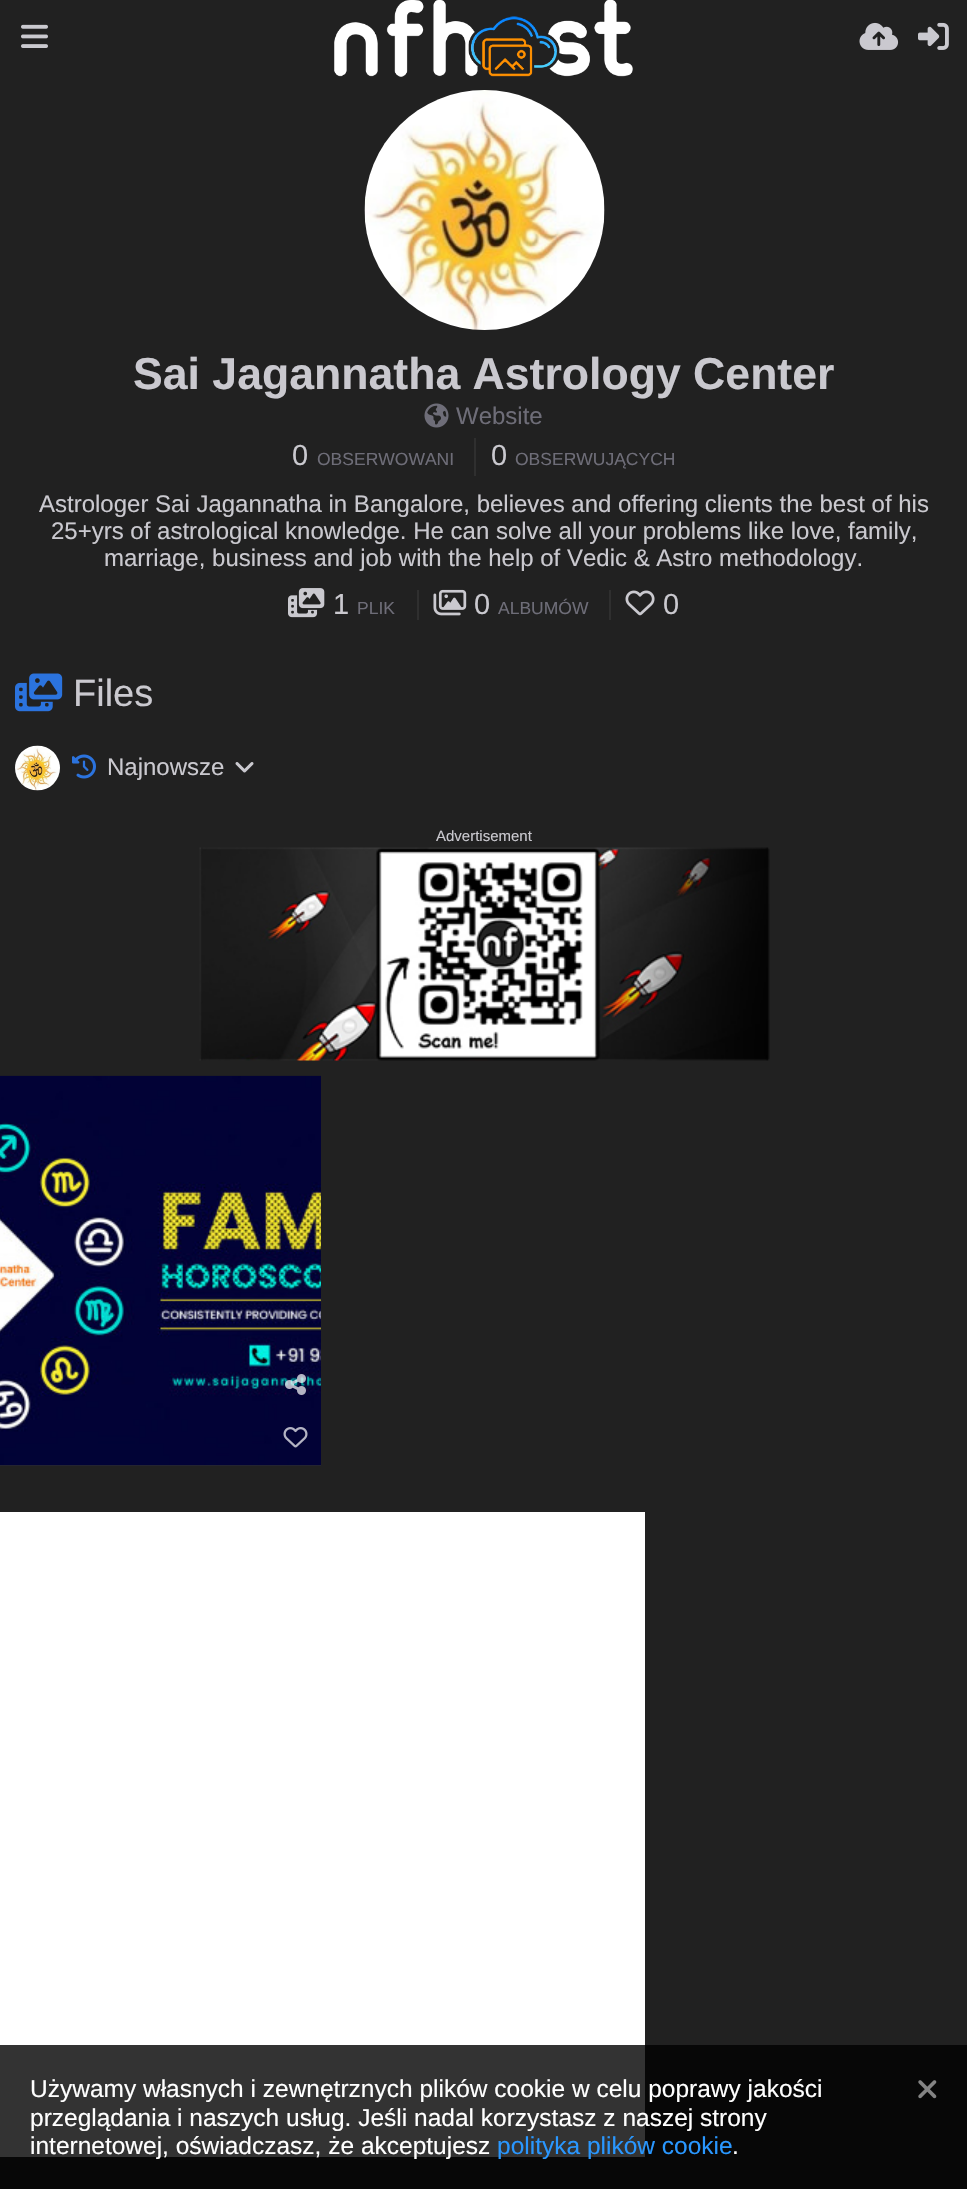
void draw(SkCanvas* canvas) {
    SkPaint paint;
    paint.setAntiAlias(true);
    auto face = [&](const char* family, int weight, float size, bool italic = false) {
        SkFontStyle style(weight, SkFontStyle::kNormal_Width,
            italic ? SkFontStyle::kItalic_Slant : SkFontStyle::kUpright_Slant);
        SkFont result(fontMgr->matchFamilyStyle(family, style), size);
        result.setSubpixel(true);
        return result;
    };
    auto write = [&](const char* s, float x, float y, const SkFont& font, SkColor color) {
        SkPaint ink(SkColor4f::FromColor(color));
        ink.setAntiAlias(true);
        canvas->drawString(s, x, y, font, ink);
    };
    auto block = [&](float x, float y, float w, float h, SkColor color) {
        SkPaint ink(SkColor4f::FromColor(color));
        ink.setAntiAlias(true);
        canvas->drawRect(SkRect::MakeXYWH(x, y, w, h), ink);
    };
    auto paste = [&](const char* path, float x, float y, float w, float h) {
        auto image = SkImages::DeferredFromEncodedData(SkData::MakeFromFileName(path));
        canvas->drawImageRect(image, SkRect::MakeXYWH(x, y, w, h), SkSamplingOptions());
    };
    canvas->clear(SkColorSetRGB(33, 33, 33));
    block(0, 2045, 967, 144, SkColorSetRGB(7, 7, 7));
    paste("pic1.png", 21, 24, 27, 24);
    paste("pic2.png", 334, 0, 299, 77);
    paste("pic3.png", 859, 22, 40, 28);
    paste("pic4.png", 918, 22, 31, 28);
    paste("pic5.png", 364, 90, 241, 240);
    auto kFont1 = face("Liberation Sans", 700, 44.6f);
    write("Sai Jagannatha Astrology Center", 133, 389, kFont1, SkColorSetRGB(202, 201, 207));
    paste("pic6.png", 424, 403, 25, 25);
    auto kFont2 = face("Liberation Sans", 400, 24);
    write("Website", 456, 424, kFont2, SkColorSetRGB(110, 109, 120));
    auto kFont3 = face("Liberation Sans", 400, 29);
    write("0", 292, 465, kFont3, SkColorSetRGB(202, 201, 207));
    auto kFont4 = face("Liberation Sans", 400, 17.5f);
    write("OBSERWOWANI", 317, 465, kFont4, SkColorSetRGB(110, 109, 120));
    block(474, 438, 2, 38, SkColorSetRGB(47, 47, 47));
    write("0", 491, 465, kFont3, SkColorSetRGB(202, 201, 207));
    write("OBSERWUJĄCYCH", 515, 465, kFont4, SkColorSetRGB(110, 109, 120));
    write("Astrologer Sai Jagannatha in Bangalore, believes and offering clients the best of his", 39, 512, kFont2, SkColorSetRGB(202, 201, 207));
    write("25+yrs of astrological knowledge. He can solve all your problems like love, family,", 51, 539, kFont2, SkColorSetRGB(202, 201, 207));
    write("marriage, business and job with the help of Vedic & Astro methodology.", 104, 566, kFont2, SkColorSetRGB(202, 201, 207));
    paste("pic7.png", 288, 588, 37, 30);
    write("1", 333, 614, kFont3, SkColorSetRGB(202, 201, 207));
    write("PLIK", 357, 614, kFont4, SkColorSetRGB(110, 109, 120));
    block(417, 590, 2, 30, SkColorSetRGB(47, 47, 47));
    paste("pic8.png", 433, 589, 34, 27);
    write("0", 474, 614, kFont3, SkColorSetRGB(202, 201, 207));
    write("ALBUMÓW", 498, 614, kFont4, SkColorSetRGB(110, 109, 120));
    block(609, 590, 2, 30, SkColorSetRGB(47, 47, 47));
    paste("pic9.png", 625, 590, 30, 26);
    write("0", 663, 614, kFont3, SkColorSetRGB(202, 201, 207));
    paste("pic10.png", 15, 673, 48, 39);
    auto kFont5 = face("Liberation Sans", 400, 38);
    write("Files", 73, 706, kFont5, SkColorSetRGB(202, 201, 207));
    paste("pic11.png", 15, 745, 45, 46);
    paste("pic12.png", 72, 754, 24, 25);
    write("Najnowsze", 107, 775, kFont2, SkColorSetRGB(202, 201, 207));
    paste("pic13.png", 235, 762, 19, 11);
    auto kFont6 = face("Liberation Sans", 400, 15);
    write("Advertisement", 436, 841, kFont6, SkColorSetRGB(202, 201, 207));
    paste("pic14.png", 199, 847, 571, 214);
    block(0, 1465, 321, 1, SkColorSetRGB(47, 47, 47));
    paste("pic15.png", 0, 1075, 321, 391);
    paste("pic16.png", 285, 1374, 21, 21);
    paste("pic17.png", 283, 1427, 25, 21);
    block(0, 1512, 645, 533, SK_ColorWHITE);
    block(0, 2045, 645, 112, SkColorSetRGB(51, 51, 51));
    auto kFont7 = face("Liberation Sans", 400, 24.5f);
    write("Używamy własnych i zewnętrznych plików cookie w celu poprawy jakości", 30, 2097, kFont7, SK_ColorWHITE);
    write("przeglądania i naszych usług. Jeśli nadal korzystasz z naszej strony", 30, 2126, kFont7, SK_ColorWHITE);
    write("internetowej, oświadczasz, że akceptujesz", 30, 2154, kFont7, SK_ColorWHITE);
    write("polityka plików cookie", 497, 2154, kFont7, SkColorSetRGB(41, 151, 255));
    write(".", 732, 2154, kFont7, SK_ColorWHITE);
    paste("pic18.png", 918, 2080, 19, 19);
}
